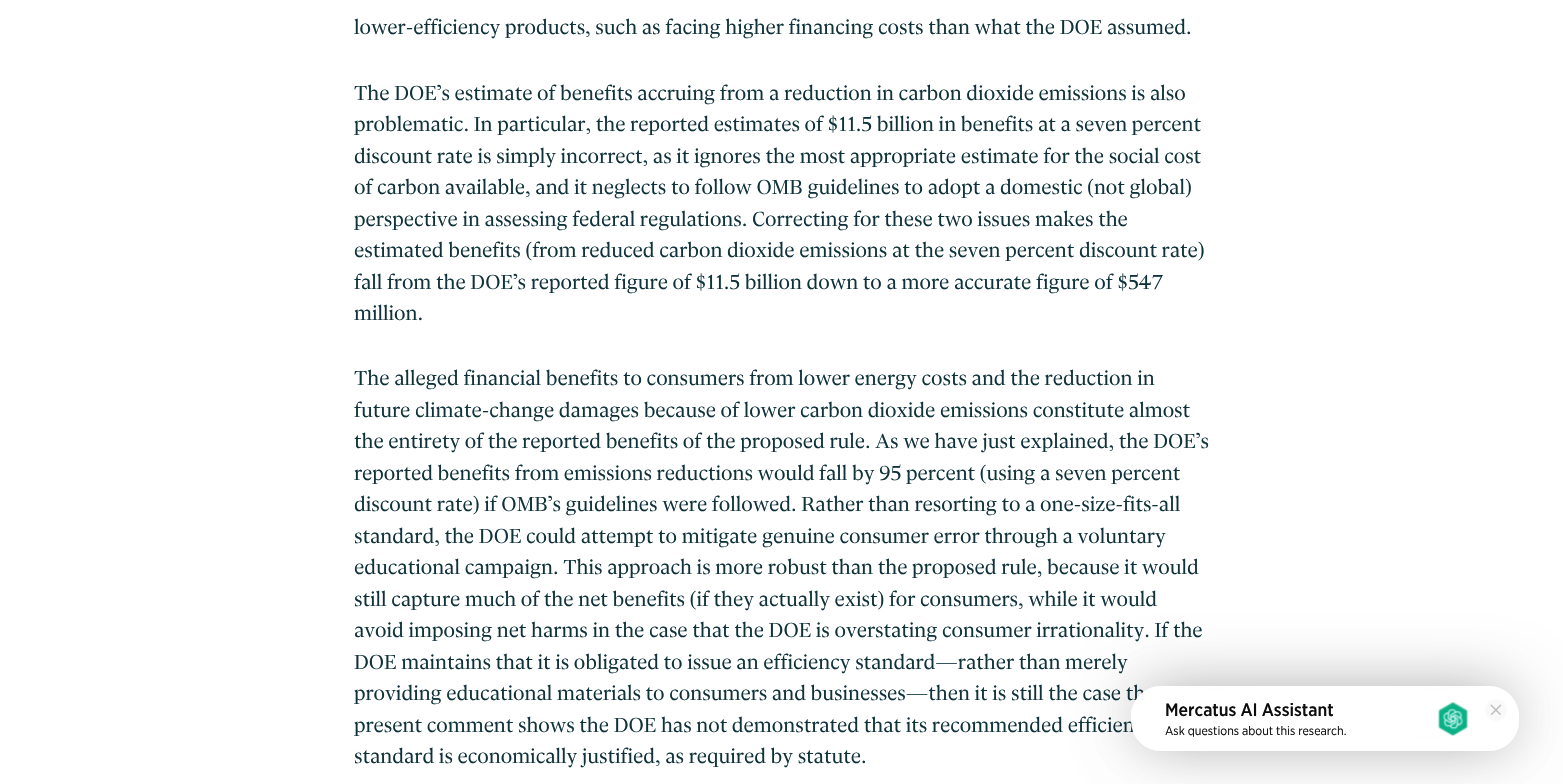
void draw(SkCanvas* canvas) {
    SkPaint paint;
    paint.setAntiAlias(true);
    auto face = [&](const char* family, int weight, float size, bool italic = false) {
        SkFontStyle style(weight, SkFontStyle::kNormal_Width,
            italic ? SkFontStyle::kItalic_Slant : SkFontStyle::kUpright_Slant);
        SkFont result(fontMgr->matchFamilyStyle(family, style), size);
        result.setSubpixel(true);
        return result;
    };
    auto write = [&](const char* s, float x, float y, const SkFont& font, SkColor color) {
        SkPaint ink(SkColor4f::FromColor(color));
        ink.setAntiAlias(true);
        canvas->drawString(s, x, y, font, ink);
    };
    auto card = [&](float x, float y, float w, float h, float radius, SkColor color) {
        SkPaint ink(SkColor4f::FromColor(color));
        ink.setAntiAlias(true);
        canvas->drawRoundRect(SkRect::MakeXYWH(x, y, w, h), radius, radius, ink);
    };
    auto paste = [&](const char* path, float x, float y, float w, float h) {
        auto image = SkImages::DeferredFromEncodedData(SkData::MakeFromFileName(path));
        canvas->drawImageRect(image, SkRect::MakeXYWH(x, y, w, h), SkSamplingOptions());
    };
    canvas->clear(SK_ColorWHITE);
    auto kFont1 = face("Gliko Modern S", 400, 22.5f);
    write("lower-efficiency products, such as facing higher financing costs than what the DOE assumed.", 354, 34, kFont1, SkColorSetRGB(16, 51, 59));
    write("The DOE’s estimate of benefits accruing from a reduction in carbon dioxide emissions is also", 354, 100, kFont1, SkColorSetRGB(16, 51, 59));
    write("problematic. In particular, the reported estimates of $11.5 billion in benefits at a seven percent", 354, 131, kFont1, SkColorSetRGB(16, 51, 59));
    write("discount rate is simply incorrect, as it ignores the most appropriate estimate for the social cost", 354, 163, kFont1, SkColorSetRGB(16, 51, 59));
    write("of carbon available, and it neglects to follow OMB guidelines to adopt a domestic (not global)", 354, 194, kFont1, SkColorSetRGB(16, 51, 59));
    write("perspective in assessing federal regulations. Correcting for these two issues makes the", 354, 226, kFont1, SkColorSetRGB(16, 51, 59));
    write("estimated benefits (from reduced carbon dioxide emissions at the seven percent discount rate)", 354, 257, kFont1, SkColorSetRGB(16, 51, 59));
    write("fall from the DOE’s reported figure of $11.5 billion down to a more accurate figure of $547", 354, 289, kFont1, SkColorSetRGB(16, 51, 59));
    write("million.", 354, 320, kFont1, SkColorSetRGB(16, 51, 59));
    write("The alleged financial benefits to consumers from lower energy costs and the reduction in", 354, 385, kFont1, SkColorSetRGB(16, 51, 59));
    write("future climate-change damages because of lower carbon dioxide emissions constitute almost", 354, 417, kFont1, SkColorSetRGB(16, 51, 59));
    write("the entirety of the reported benefits of the proposed rule. As we have just explained, the DOE’s", 354, 448, kFont1, SkColorSetRGB(16, 51, 59));
    write("reported benefits from emissions reductions would fall by 95 percent (using a seven percent", 354, 480, kFont1, SkColorSetRGB(16, 51, 59));
    write("discount rate) if OMB’s guidelines were followed. Rather than resorting to a one-size-fits-all", 354, 511, kFont1, SkColorSetRGB(16, 51, 59));
    write("standard, the DOE could attempt to mitigate genuine consumer error through a voluntary", 354, 543, kFont1, SkColorSetRGB(16, 51, 59));
    write("educational campaign. This approach is more robust than the proposed rule, because it would", 354, 574, kFont1, SkColorSetRGB(16, 51, 59));
    write("still capture much of the net benefits (if they actually exist) for consumers, while it would", 354, 606, kFont1, SkColorSetRGB(16, 51, 59));
    write("avoid imposing net harms in the case that the DOE is overstating consumer irrationality. If the", 354, 637, kFont1, SkColorSetRGB(16, 51, 59));
    write("DOE maintains that it is obligated to issue an efficiency standard—rather than merely", 354, 669, kFont1, SkColorSetRGB(16, 51, 59));
    write("providing educational materials to consumers and businesses—then it is still the case th", 354, 700, kFont1, SkColorSetRGB(16, 51, 59));
    write("present comment shows the DOE has not demonstrated that its recommended efficien", 354, 732, kFont1, SkColorSetRGB(16, 51, 59));
    write("standard is economically justified, as required by statute.", 354, 763, kFont1, SkColorSetRGB(16, 51, 59));
    canvas->save();
    canvas->clipPath(SkPathBuilder(SkPathFillType::kEvenOdd).moveTo(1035, 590).lineTo(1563, 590).lineTo(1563, 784).lineTo(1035, 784).close().moveTo(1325, 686).cubicTo(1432, 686, 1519, 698.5f, 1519, 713).cubicTo(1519, 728, 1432, 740, 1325, 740).cubicTo(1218, 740, 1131, 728, 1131, 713).cubicTo(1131, 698.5f, 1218, 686, 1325, 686).close().detach(), true);
    paint.setColor(SkColorSetARGB(61, 0, 0, 0));
    paint.setMaskFilter(SkMaskFilter::MakeBlur(kNormal_SkBlurStyle, 35));
    canvas->drawRoundRect(SkRect::MakeXYWH(1141, 696, 368, 34), 17, 17, paint);
    paint.setMaskFilter(nullptr);
    canvas->restore();
    canvas->save();
    canvas->clipPath(SkPathBuilder(SkPathFillType::kEvenOdd).moveTo(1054, 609).lineTo(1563, 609).lineTo(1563, 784).lineTo(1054, 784).close().moveTo(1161, 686).lineTo(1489, 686).cubicTo(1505.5f, 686, 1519, 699.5f, 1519, 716).lineTo(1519, 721).cubicTo(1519, 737.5f, 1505.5f, 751, 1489, 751).lineTo(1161, 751).cubicTo(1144.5f, 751, 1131, 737.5f, 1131, 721).lineTo(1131, 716).cubicTo(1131, 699.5f, 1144.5f, 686, 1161, 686).close().detach(), true);
    paint.setMaskFilter(SkMaskFilter::MakeBlur(kNormal_SkBlurStyle, 28));
    canvas->drawRoundRect(SkRect::MakeXYWH(1139, 694, 372, 50), 23, 23, paint);
    paint.setMaskFilter(nullptr);
    canvas->restore();
    card(1131, 686, 388, 65, 30, SkColorSetARGB(242, 255, 255, 255));
    auto kFont2 = face("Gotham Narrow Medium", 500, 18);
    write("Mercatus AI Assistant", 1165, 716, kFont2, SkColorSetRGB(13, 13, 13));
    auto kFont3 = face("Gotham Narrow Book", 400, 12.4f);
    write("Ask questions about this research.", 1165, 735, kFont3, SkColorSetRGB(13, 13, 13));
    paste("pic1.png", 1438, 702, 30, 35);
    paste("pic2.png", 1485, 699, 22, 22);
}
